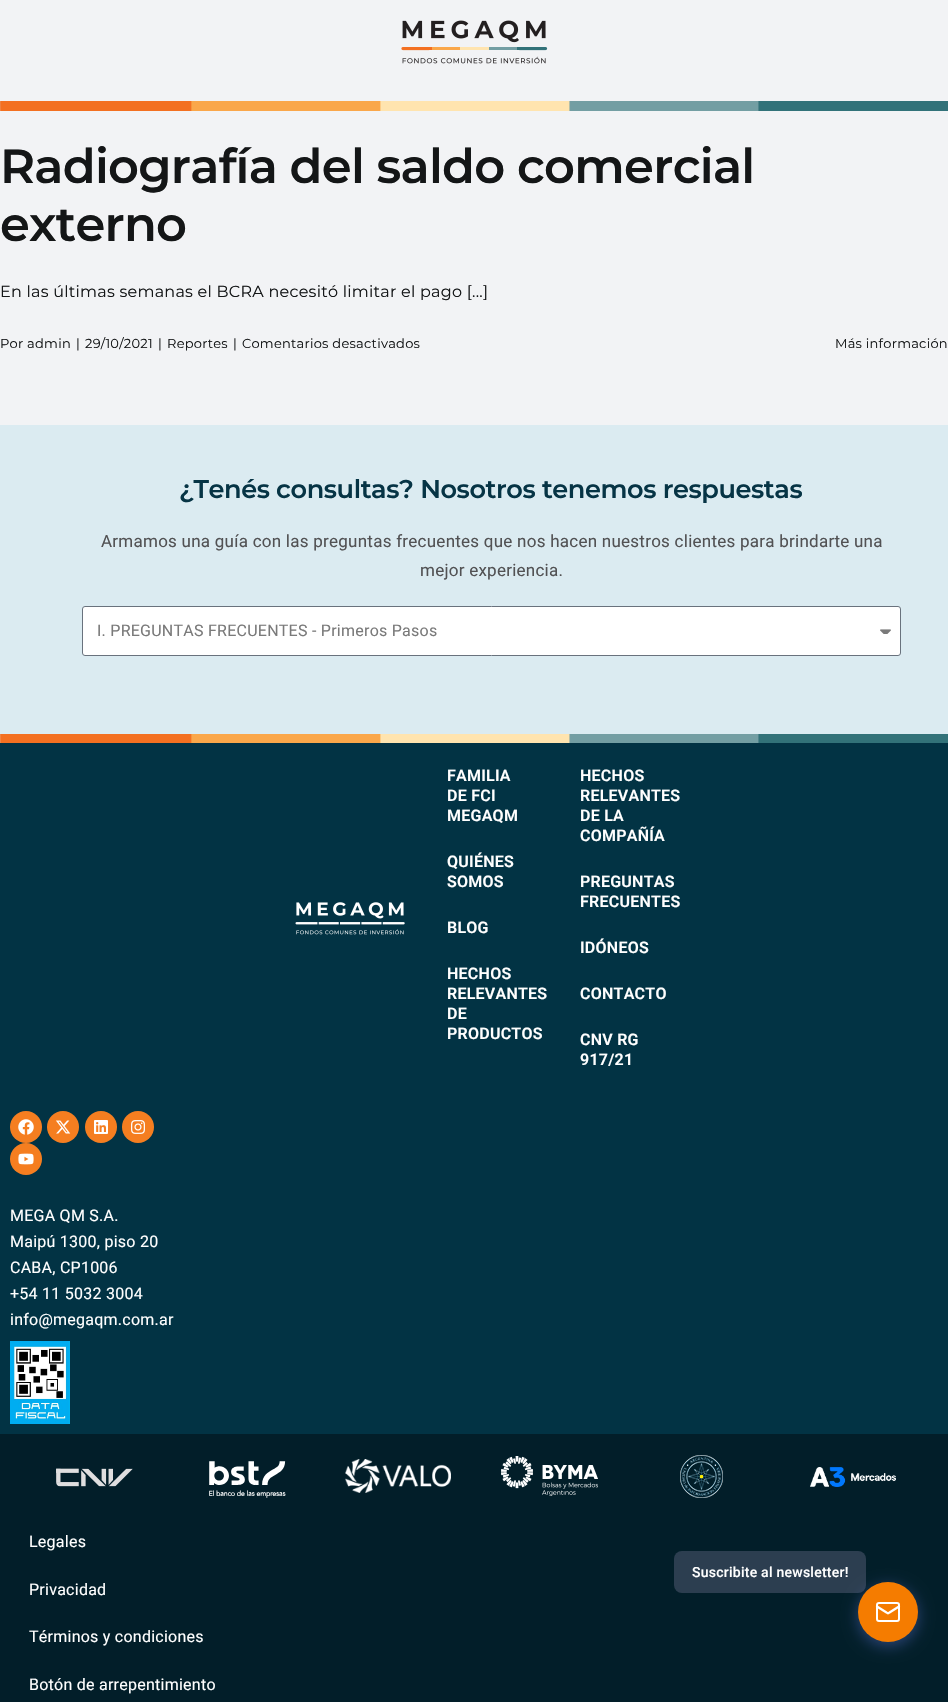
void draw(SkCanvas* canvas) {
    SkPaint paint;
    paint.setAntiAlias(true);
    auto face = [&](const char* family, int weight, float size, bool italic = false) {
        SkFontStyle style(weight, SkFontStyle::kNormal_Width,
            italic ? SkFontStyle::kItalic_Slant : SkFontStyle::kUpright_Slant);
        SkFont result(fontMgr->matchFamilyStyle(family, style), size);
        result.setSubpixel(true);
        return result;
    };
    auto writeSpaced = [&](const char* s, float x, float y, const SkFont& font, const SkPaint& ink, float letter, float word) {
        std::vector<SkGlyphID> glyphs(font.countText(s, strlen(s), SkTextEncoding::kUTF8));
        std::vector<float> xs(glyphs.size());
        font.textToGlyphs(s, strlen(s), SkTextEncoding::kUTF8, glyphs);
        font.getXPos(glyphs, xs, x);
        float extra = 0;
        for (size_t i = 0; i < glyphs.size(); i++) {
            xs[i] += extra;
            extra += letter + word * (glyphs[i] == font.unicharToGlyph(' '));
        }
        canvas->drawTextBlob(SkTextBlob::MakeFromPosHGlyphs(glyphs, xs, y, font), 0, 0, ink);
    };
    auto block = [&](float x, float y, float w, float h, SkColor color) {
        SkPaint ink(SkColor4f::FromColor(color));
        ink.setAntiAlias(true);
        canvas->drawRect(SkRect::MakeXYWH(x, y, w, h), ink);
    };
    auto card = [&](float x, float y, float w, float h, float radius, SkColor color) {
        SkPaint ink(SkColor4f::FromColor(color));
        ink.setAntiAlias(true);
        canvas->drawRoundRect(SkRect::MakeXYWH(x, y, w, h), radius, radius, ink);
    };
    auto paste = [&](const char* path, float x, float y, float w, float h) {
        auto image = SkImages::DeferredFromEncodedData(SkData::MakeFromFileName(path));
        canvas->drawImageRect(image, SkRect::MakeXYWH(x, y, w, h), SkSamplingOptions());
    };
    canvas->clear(SkColorSetRGB(242, 243, 245));
    canvas->save();
    canvas->clipRect(SkRect::MakeXYWH(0, 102, 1, 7));
    paint.setColor(SkColorSetARGB(128, 0, 0, 0));
    paint.setMaskFilter(SkMaskFilter::MakeBlur(kNormal_SkBlurStyle, 5));
    canvas->drawRect(SkRect::MakeXYWH(0, 0, 948, 102), paint);
    paint.setMaskFilter(nullptr);
    canvas->restore();
    paste("pic1.png", 401, 20, 147, 44);
    paste("pic2.png", 0, 101, 948, 10);
    auto kFont1 = face("Montserrat", 600, 48);
    paint.setColor(SkColorSetRGB(20, 22, 23));
    writeSpaced("Radiografía del saldo comercial", 0, 183, kFont1, paint, -0.75f, 0);
    writeSpaced("externo", 0, 241, kFont1, paint, -0.75f, 0);
    auto kFont2 = face("Montserrat", 400, 16);
    writeSpaced("En las últimas semanas el BCRA necesitó limitar el pago [...]", 0, 297, kFont2, paint, 0.25f, 0);
    auto kFont3 = face("Montserrat", 400, 13);
    writeSpaced("Por admin", 0, 348, kFont3, paint, 0.25f, 0);
    writeSpaced("|", 76, 348, kFont3, paint, 0.25f, 0);
    writeSpaced("29/10/2021", 85, 348, kFont3, paint, 0.25f, 0);
    writeSpaced("|", 158, 348, kFont3, paint, 0.25f, 0);
    writeSpaced("Reportes", 167, 348, kFont3, paint, 0.25f, 0);
    writeSpaced("|", 233, 348, kFont3, paint, 0.25f, 0);
    writeSpaced("Comentarios desactivados", 242, 348, kFont3, paint, 0.25f, 0);
    writeSpaced("Más información", 835, 348, kFont3, paint, 0.25f, 0);
    block(0, 425, 948, 310, SkColorSetRGB(219, 235, 241));
    auto kFont4 = face("Montserrat", 600, 25.6f);
    paint.setColor(SkColorSetRGB(6, 52, 69));
    writeSpaced("¿Tenés consultas? Nosotros tenemos respuestas", 179, 498, kFont4, paint, -0.4f, 0);
    auto kFont5 = face("Roboto", 400, 17);
    paint.setColor(SkColorSetRGB(82, 82, 84));
    writeSpaced("Armamos una guía con las preguntas frecuentes que nos hacen nuestros clientes para brindarte una", 101, 547, kFont5, paint, 0.25f, 0);
    writeSpaced("mejor experiencia.", 420, 576, kFont5, paint, 0.25f, 0);
    paint.setColor(SK_ColorWHITE);
    canvas->drawRoundRect(SkRect::MakeXYWH(82.5f, 606.5f, 818, 49), 2.5f, 2.5f, paint);
    paint.setStyle(SkPaint::kStroke_Style);
    paint.setStrokeWidth(1);
    paint.setColor(SkColorSetRGB(105, 114, 125));
    canvas->drawRoundRect(SkRect::MakeXYWH(82.5f, 606.5f, 818, 49), 2.5f, 2.5f, paint);
    auto kFont6 = face("Roboto", 400, 16);
    paint.setStyle(SkPaint::kFill_Style);
    paint.setColor(SkColorSetRGB(122, 122, 122));
    writeSpaced("I. PREGUNTAS FRECUENTES - Primeros Pasos", 97, 636, kFont6, paint, 0.25f, 0);
    paste("pic3.png", 880, 629, 11, 5);
    paste("pic4.png", 0, 734, 948, 9);
    block(0, 743, 948, 691, SkColorSetRGB(2, 51, 68));
    paste("pic5.png", 295, 902, 110, 33);
    auto kFont7 = face("Roboto", 600, 16);
    paint.setColor(SK_ColorWHITE);
    writeSpaced("FAMILIA", 447, 781, kFont7, paint, 0.25f, 0);
    writeSpaced("DE FCI", 447, 801, kFont7, paint, 0.25f, 0);
    writeSpaced("MEGAQM", 447, 821, kFont7, paint, 0.25f, 0);
    writeSpaced("QUIÉNES", 447, 867, kFont7, paint, 0.25f, 0);
    writeSpaced("SOMOS", 447, 887, kFont7, paint, 0.25f, 0);
    writeSpaced("BLOG", 447, 933, kFont7, paint, 0.25f, 0);
    writeSpaced("HECHOS", 447, 979, kFont7, paint, 0.25f, 0);
    writeSpaced("RELEVANTES", 447, 999, kFont7, paint, 0.25f, 0);
    writeSpaced("DE", 447, 1019, kFont7, paint, 0.25f, 0);
    writeSpaced("PRODUCTOS", 447, 1039, kFont7, paint, 0.25f, 0);
    writeSpaced("HECHOS", 580, 781, kFont7, paint, 0.25f, 0);
    writeSpaced("RELEVANTES", 580, 801, kFont7, paint, 0.25f, 0);
    writeSpaced("DE LA", 580, 821, kFont7, paint, 0.25f, 0);
    writeSpaced("COMPAÑÍA", 580, 841, kFont7, paint, 0.25f, 0);
    writeSpaced("PREGUNTAS", 580, 887, kFont7, paint, 0.25f, 0);
    writeSpaced("FRECUENTES", 580, 907, kFont7, paint, 0.25f, 0);
    writeSpaced("IDÓNEOS", 580, 953, kFont7, paint, 0.25f, 0);
    writeSpaced("CONTACTO", 580, 999, kFont7, paint, 0.25f, 0);
    writeSpaced("CNV RG", 580, 1045, kFont7, paint, 0.25f, 0);
    writeSpaced("917/21", 580, 1065, kFont7, paint, 0.25f, 0);
    paint.setColor(SkColorSetRGB(245, 126, 32));
    canvas->drawCircle(26, 1127, 16, paint);
    paste("pic6.png", 18, 1119, 16, 16);
    canvas->drawCircle(63, 1127, 16, paint);
    paste("pic7.png", 56, 1120, 15, 14);
    canvas->drawCircle(101, 1127, 16, paint);
    paste("pic8.png", 94, 1120, 14, 14);
    canvas->drawCircle(138, 1127, 16, paint);
    paste("pic9.png", 131, 1120, 14, 14);
    canvas->drawCircle(26, 1159, 16, paint);
    paste("pic10.png", 18, 1153, 16, 12);
    paint.setColor(SK_ColorWHITE);
    writeSpaced("MEGA QM S.A.", 10, 1221, kFont6, paint, 0.25f, 0);
    writeSpaced("Maipú 1300, piso 20", 10, 1247, kFont6, paint, 0.25f, 0);
    writeSpaced("CABA, CP1006", 10, 1273, kFont6, paint, 0.25f, 0);
    writeSpaced("+54 11 5032 3004", 10, 1299, kFont6, paint, 0.25f, 0);
    writeSpaced("info@megaqm.com.ar", 10, 1325, kFont6, paint, 0.25f, 0);
    paste("pic11.png", 10, 1341, 60, 83);
    block(0, 1434, 948, 268, SkColorSetRGB(2, 30, 41));
    paste("pic12.png", 56, 1468, 77, 19);
    paste("pic13.png", 209, 1461, 77, 37);
    paste("pic14.png", 345, 1459, 106, 34);
    paste("pic15.png", 501, 1456, 97, 40);
    paste("pic16.png", 680, 1455, 43, 43);
    paste("pic17.png", 810, 1467, 86, 20);
    writeSpaced("Legales", 29, 1547, kFont6, paint, 0.25f, 0);
    writeSpaced("Privacidad", 29, 1595, kFont6, paint, 0.25f, 0);
    writeSpaced("Términos y condiciones", 29, 1642, kFont6, paint, 0.25f, 0);
    writeSpaced("Botón de arrepentimiento", 29, 1690, kFont6, paint, 0.25f, 0);
    card(674, 1551, 192, 42, 8, SkColorSetRGB(44, 62, 80));
    auto kFont8 = face("Roboto", 500, 14);
    writeSpaced("Suscribite al newsletter!", 692, 1577, kFont8, paint, 0.25f, 0);
    paint.setColor(SkColorSetARGB(102, 102, 126, 234));
    paint.setMaskFilter(SkMaskFilter::MakeBlur(kNormal_SkBlurStyle, 7.5f));
    canvas->drawRoundRect(SkRect::MakeXYWH(858, 1586, 60, 60), 30, 30, paint);
    paint.setMaskFilter(nullptr);
    paint.setColor(SkColorSetRGB(245, 124, 0));
    canvas->drawCircle(888, 1612, 30, paint);
    paint.setStyle(SkPaint::kStroke_Style);
    paint.setStrokeWidth(2);
    paint.setColor(SK_ColorWHITE);
    canvas->drawRoundRect(SkRect::MakeXYWH(877, 1603, 22, 18), 2, 2, paint);
    paint.setStrokeWidth(2.2f);
    paint.setStrokeCap(SkPaint::kRound_Cap);
    paint.setStrokeJoin(SkPaint::kRound_Join);
    canvas->drawPath(SkPathBuilder().moveTo(877, 1606.5f).lineTo(886.5f, 1612.5f).cubicTo(887.5f, 1613.5f, 888.5f, 1613.5f, 889.5f, 1612.5f).lineTo(899, 1606.5f).detach(), paint);
}
